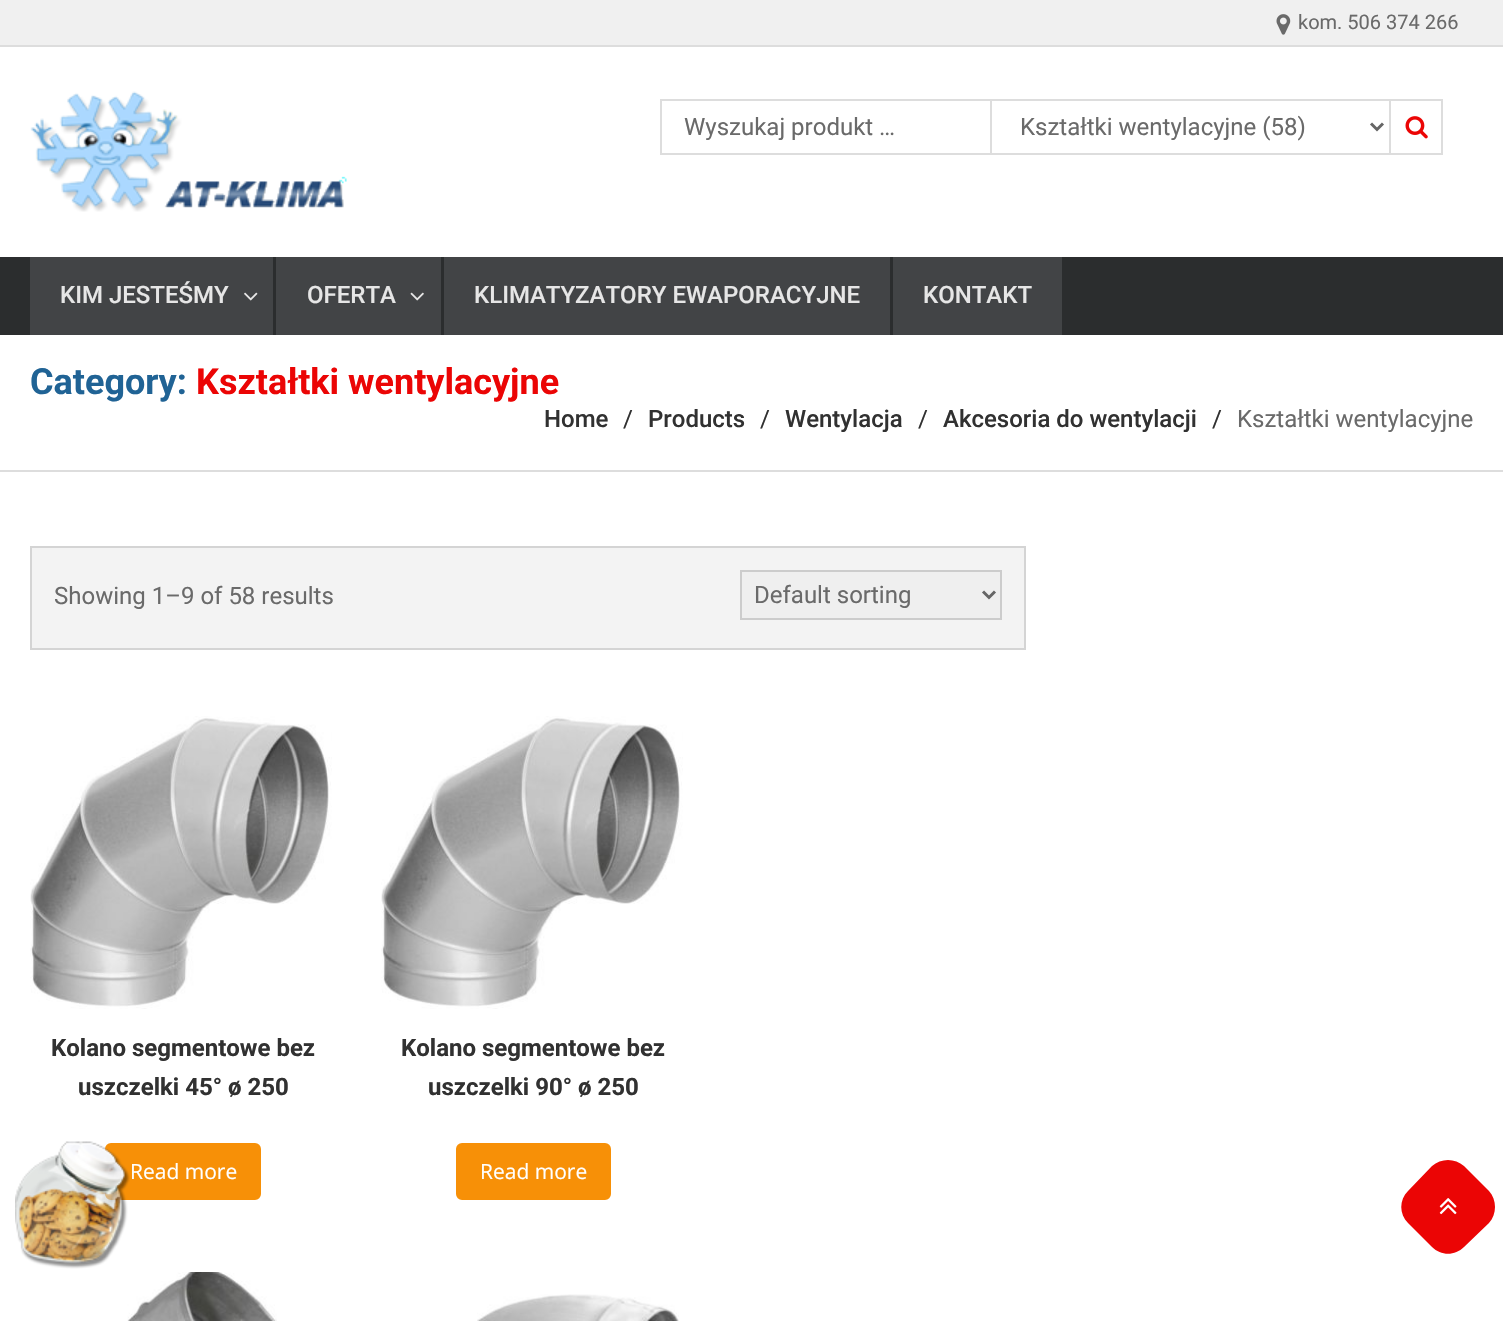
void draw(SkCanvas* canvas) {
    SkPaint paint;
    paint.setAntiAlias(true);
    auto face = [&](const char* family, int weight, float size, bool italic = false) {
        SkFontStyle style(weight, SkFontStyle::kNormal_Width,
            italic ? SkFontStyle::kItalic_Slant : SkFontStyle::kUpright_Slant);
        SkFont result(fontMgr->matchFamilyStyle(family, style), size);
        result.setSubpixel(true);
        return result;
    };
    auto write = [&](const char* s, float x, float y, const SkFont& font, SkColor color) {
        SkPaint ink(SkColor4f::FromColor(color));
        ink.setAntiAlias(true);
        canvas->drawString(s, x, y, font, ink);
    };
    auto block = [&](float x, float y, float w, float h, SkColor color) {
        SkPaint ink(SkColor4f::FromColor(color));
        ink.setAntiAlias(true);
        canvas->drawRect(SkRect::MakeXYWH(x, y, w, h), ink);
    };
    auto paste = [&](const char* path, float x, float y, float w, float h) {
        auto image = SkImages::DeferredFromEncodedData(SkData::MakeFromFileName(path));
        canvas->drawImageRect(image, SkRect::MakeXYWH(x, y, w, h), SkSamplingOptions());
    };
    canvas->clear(SK_ColorWHITE);
    block(0, 0, 1503, 45, SkColorSetRGB(240, 240, 240));
    block(0, 45, 1503, 2, SkColorSetRGB(221, 221, 221));
    paste("pic1.png", 1276, 14, 15, 21);
    auto kFont1 = face("Roboto", 400, 20);
    write("kom. 506 374 266", 1298, 29, kFont1, SkColorSetRGB(106, 106, 106));
    paste("pic2.png", 30, 91, 317, 121);
    paint.setStyle(SkPaint::kStroke_Style);
    paint.setStrokeWidth(2);
    paint.setColor(SkColorSetRGB(221, 221, 221));
    canvas->drawRect(SkRect::MakeXYWH(661, 100, 781, 54), paint);
    block(990, 101, 2, 52, SkColorSetRGB(221, 221, 221));
    auto kFont2 = face("Roboto", 400, 24);
    write("Wyszukaj produkt …", 684, 135, kFont2, SkColorSetRGB(106, 106, 106));
    paint.setStrokeWidth(3);
    paint.setColor(SkColorSetRGB(102, 102, 102));
    canvas->drawPath(SkPathBuilder().moveTo(1371, 123.5f).lineTo(1377, 129.5f).lineTo(1383, 123.5f).detach(), paint);
    write("Kształtki wentylacyjne (58)", 1020, 135, kFont2, SkColorSetRGB(106, 106, 106));
    block(1389, 101, 2, 52, SkColorSetRGB(221, 221, 221));
    paste("pic3.png", 1405, 116, 23, 23);
    block(0, 257, 1503, 78, SkColorSetRGB(43, 45, 46));
    block(30, 257, 243, 78, SkColorSetRGB(66, 68, 70));
    auto kFont3 = face("Roboto", 500, 24);
    write("KIM JESTEŚMY", 60, 303, kFont3, SkColorSetRGB(230, 230, 230));
    paste("pic4.png", 244, 292, 14, 9);
    block(276, 257, 165, 78, SkColorSetRGB(66, 68, 70));
    write("OFERTA", 307, 303, kFont3, SkColorSetRGB(230, 230, 230));
    paste("pic5.png", 410, 292, 14, 9);
    block(444, 257, 446, 78, SkColorSetRGB(66, 68, 70));
    write("KLIMATYZATORY EWAPORACYJNE", 474, 303, kFont3, SkColorSetRGB(230, 230, 230));
    block(893, 257, 169, 78, SkColorSetRGB(66, 68, 70));
    write("KONTAKT", 923, 303, kFont3, SkColorSetRGB(230, 230, 230));
    block(0, 470, 1503, 2, SkColorSetRGB(221, 221, 221));
    auto kFont4 = face("Roboto", 700, 36);
    write("Category:", 30, 394, kFont4, SkColorSetRGB(32, 99, 149));
    write("Kształtki wentylacyjne", 196, 394, kFont4, SkColorSetRGB(235, 5, 5));
    write("Home", 544, 427, kFont3, SkColorSetRGB(49, 49, 49));
    write("/", 623, 427, kFont2, SkColorSetRGB(49, 49, 49));
    write("Products", 648, 427, kFont3, SkColorSetRGB(49, 49, 49));
    write("/", 760, 427, kFont2, SkColorSetRGB(49, 49, 49));
    write("Wentylacja", 785, 427, kFont3, SkColorSetRGB(49, 49, 49));
    write("/", 918, 427, kFont2, SkColorSetRGB(49, 49, 49));
    write("Akcesoria do wentylacji", 943, 427, kFont3, SkColorSetRGB(49, 49, 49));
    write("/", 1212, 427, kFont2, SkColorSetRGB(49, 49, 49));
    write("Kształtki wentylacyjne", 1237, 427, kFont2, SkColorSetRGB(106, 106, 106));
    paint.setStyle(SkPaint::kFill_Style);
    paint.setColor(SkColorSetRGB(243, 243, 243));
    canvas->drawRect(SkRect::MakeXYWH(31, 547, 994, 102), paint);
    paint.setStyle(SkPaint::kStroke_Style);
    paint.setStrokeWidth(2);
    paint.setColor(SkColorSetRGB(212, 212, 212));
    canvas->drawRect(SkRect::MakeXYWH(31, 547, 994, 102), paint);
    write("Showing 1–9 of 58 results", 54, 604, kFont2, SkColorSetRGB(106, 106, 106));
    paint.setStyle(SkPaint::kFill_Style);
    paint.setColor(SkColorSetRGB(239, 239, 239));
    canvas->drawRect(SkRect::MakeXYWH(741, 571, 260, 48), paint);
    paint.setStyle(SkPaint::kStroke_Style);
    paint.setColor(SkColorSetRGB(204, 204, 204));
    canvas->drawRect(SkRect::MakeXYWH(741, 571, 260, 48), paint);
    paint.setStrokeWidth(3);
    paint.setColor(SkColorSetRGB(102, 102, 102));
    canvas->drawPath(SkPathBuilder().moveTo(983, 591.5f).lineTo(989, 597.5f).lineTo(995, 591.5f).detach(), paint);
    write("Default sorting", 754, 603, kFont2, SkColorSetRGB(106, 106, 106));
    paste("pic6.png", 30, 716, 302, 293);
    auto kFont5 = face("Roboto", 700, 24);
    write("Kolano segmentowe bez", 51, 1056, kFont5, SkColorSetRGB(49, 49, 49));
    write("uszczelki 45° ø 250", 78, 1095, kFont5, SkColorSetRGB(49, 49, 49));
    paint.setStyle(SkPaint::kFill_Style);
    paint.setColor(SkColorSetRGB(247, 144, 7));
    canvas->drawRoundRect(SkRect::MakeXYWH(106.5f, 1144.5f, 153, 54), 4.5f, 4.5f, paint);
    paint.setStyle(SkPaint::kStroke_Style);
    canvas->drawRoundRect(SkRect::MakeXYWH(106.5f, 1144.5f, 153, 54), 4.5f, 4.5f, paint);
    auto kFont6 = face("Open Sans", 400, 21);
    write("Read more", 130, 1179, kFont6, SK_ColorWHITE);
    paste("pic7.png", 381, 716, 302, 293);
    write("Kolano segmentowe bez", 401, 1056, kFont5, SkColorSetRGB(49, 49, 49));
    write("uszczelki 90° ø 250", 428, 1095, kFont5, SkColorSetRGB(49, 49, 49));
    paint.setStyle(SkPaint::kFill_Style);
    canvas->drawRoundRect(SkRect::MakeXYWH(457.5f, 1144.5f, 152, 54), 4.5f, 4.5f, paint);
    paint.setStyle(SkPaint::kStroke_Style);
    canvas->drawRoundRect(SkRect::MakeXYWH(457.5f, 1144.5f, 152, 54), 4.5f, 4.5f, paint);
    write("Read more", 480, 1179, kFont6, SK_ColorWHITE);
    paste("pic8.png", 127, 1272, 150, 49);
    paste("pic9.png", 477, 1294, 202, 27);
    paste("pic10.png", 15, 1141, 115, 128);
    paint.setStyle(SkPaint::kFill_Style);
    paint.setColor(SkColorSetRGB(235, 5, 5));
    canvas->drawPath(SkPathBuilder().moveTo(1408, 1191).lineTo(1432, 1166).cubicTo(1441, 1158, 1455, 1158, 1464, 1166).lineTo(1489, 1191).cubicTo(1497, 1200, 1497, 1214, 1489, 1223).lineTo(1464, 1247).cubicTo(1455, 1256, 1441, 1256, 1432, 1247).lineTo(1408, 1223).cubicTo(1399, 1214, 1399, 1200, 1408, 1191).close().detach(), paint);
    paste("pic11.png", 1439, 1198, 18, 17);
}
